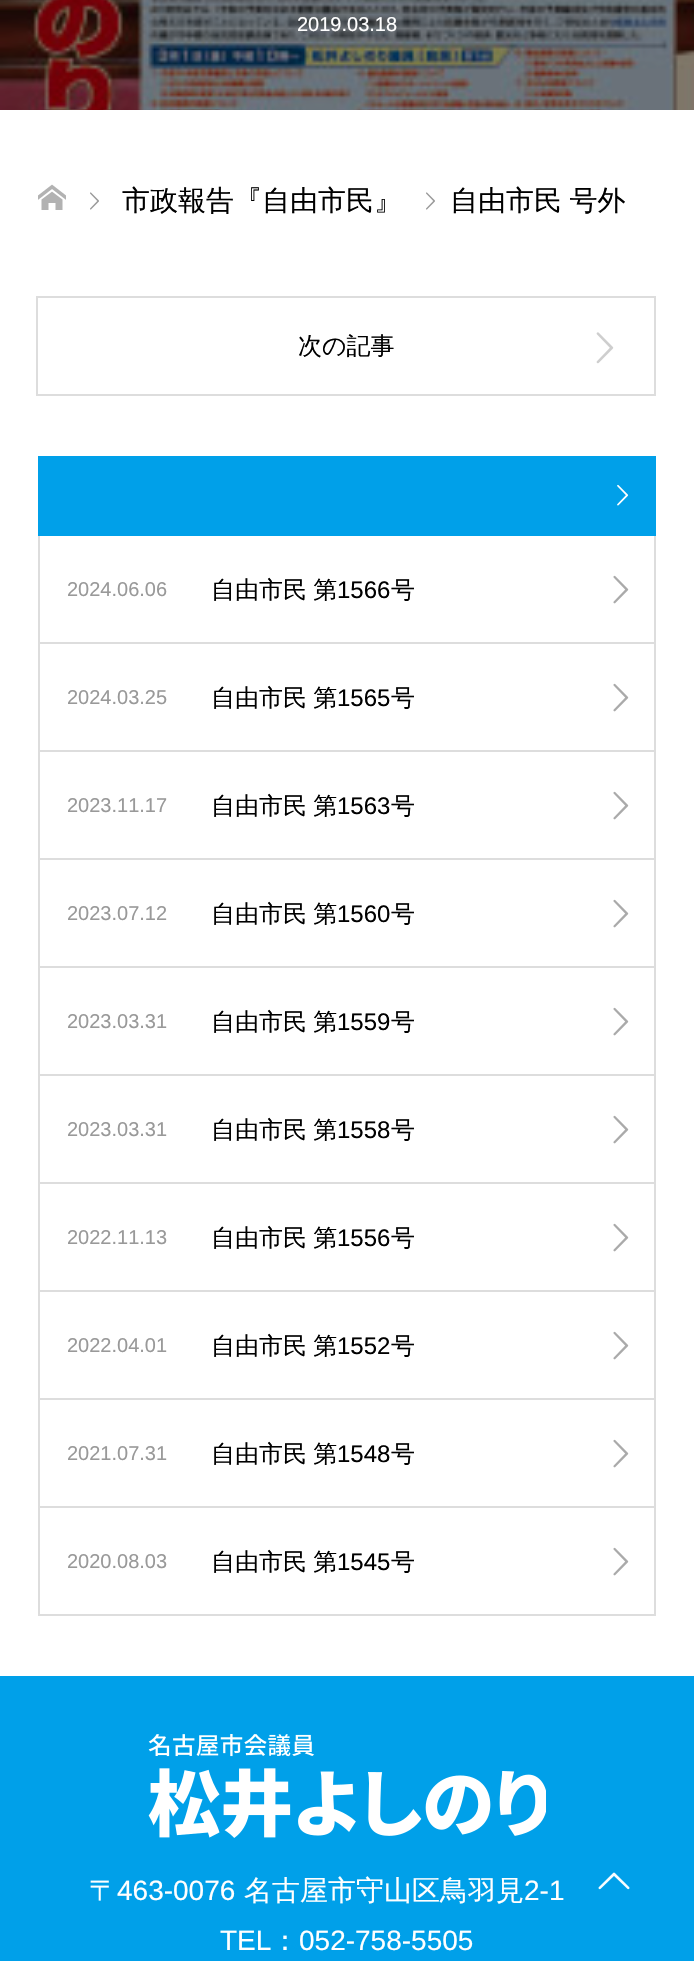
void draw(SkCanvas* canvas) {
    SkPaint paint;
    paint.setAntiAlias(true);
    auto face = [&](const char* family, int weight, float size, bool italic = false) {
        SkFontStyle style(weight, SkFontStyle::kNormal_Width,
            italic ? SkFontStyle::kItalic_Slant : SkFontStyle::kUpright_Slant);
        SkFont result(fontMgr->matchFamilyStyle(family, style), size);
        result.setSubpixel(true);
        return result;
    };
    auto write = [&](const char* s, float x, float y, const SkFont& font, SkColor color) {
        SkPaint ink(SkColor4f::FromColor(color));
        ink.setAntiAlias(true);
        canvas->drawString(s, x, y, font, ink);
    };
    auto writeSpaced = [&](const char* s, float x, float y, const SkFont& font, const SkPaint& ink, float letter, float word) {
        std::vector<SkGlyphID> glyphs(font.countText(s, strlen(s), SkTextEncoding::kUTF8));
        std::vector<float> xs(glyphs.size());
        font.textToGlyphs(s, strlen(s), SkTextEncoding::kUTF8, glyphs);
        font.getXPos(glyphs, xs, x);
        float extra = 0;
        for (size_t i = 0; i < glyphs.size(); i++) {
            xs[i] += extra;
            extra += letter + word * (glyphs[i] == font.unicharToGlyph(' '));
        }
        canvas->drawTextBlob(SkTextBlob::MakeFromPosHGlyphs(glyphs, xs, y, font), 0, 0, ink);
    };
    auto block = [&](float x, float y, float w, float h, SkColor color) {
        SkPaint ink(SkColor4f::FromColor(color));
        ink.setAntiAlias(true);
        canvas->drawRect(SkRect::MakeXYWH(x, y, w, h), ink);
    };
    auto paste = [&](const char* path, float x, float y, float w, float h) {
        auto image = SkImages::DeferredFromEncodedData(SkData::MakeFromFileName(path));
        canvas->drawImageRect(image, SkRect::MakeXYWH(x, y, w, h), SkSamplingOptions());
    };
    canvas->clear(SK_ColorWHITE);
    paste("pic1.png", 0, 0, 694, 110);
    auto kFont1 = face("Liberation Sans", 400, 20);
    write("2019.03.18", 297, 31, kFont1, SK_ColorWHITE);
    paste("pic2.png", 38, 184, 28, 26);
    paste("pic3.png", 90, 192, 9, 18);
    auto kFont2 = face("WenQuanYi Zen Hei", 500, 28);
    write("市政報告『自由市民』", 122, 210, kFont2, SK_ColorBLACK);
    paste("pic3.png", 426, 192, 9, 18);
    paint.setColor(SK_ColorBLACK);
    writeSpaced("自由市民 号外", 450, 210, kFont2, paint, 0, -1);
    paint.setStyle(SkPaint::kStroke_Style);
    paint.setStrokeWidth(2);
    paint.setColor(SkColorSetRGB(221, 221, 221));
    canvas->drawRect(SkRect::MakeXYWH(37, 297, 618, 98), paint);
    auto kFont3 = face("WenQuanYi Zen Hei", 500, 24);
    write("次の記事", 298, 354, kFont3, SK_ColorBLACK);
    paste("pic4.png", 596, 332, 18, 32);
    block(38, 456, 618, 80, SkColorSetRGB(0, 160, 233));
    paste("pic5.png", 617, 484, 12, 22);
    block(654, 536, 2, 1080, SkColorSetRGB(221, 221, 221));
    block(38, 642, 618, 2, SkColorSetRGB(221, 221, 221));
    block(38, 536, 2, 108, SkColorSetRGB(221, 221, 221));
    write("2024.06.06", 67, 596, kFont1, SkColorSetRGB(153, 153, 153));
    paint.setStyle(SkPaint::kFill_Style);
    paint.setColor(SK_ColorBLACK);
    writeSpaced("自由市民 第", 211, 598, kFont3, paint, 0, -1);
    auto kFont4 = face("Liberation Sans", 400, 24);
    write("1566", 337, 598, kFont4, SK_ColorBLACK);
    write("号", 391, 598, kFont3, SK_ColorBLACK);
    paste("pic6.png", 613, 575, 16, 29);
    block(38, 750, 618, 2, SkColorSetRGB(221, 221, 221));
    block(38, 644, 2, 108, SkColorSetRGB(221, 221, 221));
    write("2024.03.25", 67, 704, kFont1, SkColorSetRGB(153, 153, 153));
    writeSpaced("自由市民 第", 211, 706, kFont3, paint, 0, -1);
    write("1565", 337, 706, kFont4, SK_ColorBLACK);
    write("号", 391, 706, kFont3, SK_ColorBLACK);
    paste("pic6.png", 613, 683, 16, 29);
    block(38, 858, 618, 2, SkColorSetRGB(221, 221, 221));
    block(38, 752, 2, 108, SkColorSetRGB(221, 221, 221));
    write("2023.11.17", 67, 812, kFont1, SkColorSetRGB(153, 153, 153));
    writeSpaced("自由市民 第", 211, 814, kFont3, paint, 0, -1);
    write("1563", 337, 814, kFont4, SK_ColorBLACK);
    write("号", 391, 814, kFont3, SK_ColorBLACK);
    paste("pic6.png", 613, 791, 16, 29);
    block(38, 966, 618, 2, SkColorSetRGB(221, 221, 221));
    block(38, 860, 2, 108, SkColorSetRGB(221, 221, 221));
    write("2023.07.12", 67, 920, kFont1, SkColorSetRGB(153, 153, 153));
    writeSpaced("自由市民 第", 211, 922, kFont3, paint, 0, -1);
    write("1560", 337, 922, kFont4, SK_ColorBLACK);
    write("号", 391, 922, kFont3, SK_ColorBLACK);
    paste("pic6.png", 613, 899, 16, 29);
    block(38, 1074, 618, 2, SkColorSetRGB(221, 221, 221));
    block(38, 968, 2, 108, SkColorSetRGB(221, 221, 221));
    write("2023.03.31", 67, 1028, kFont1, SkColorSetRGB(153, 153, 153));
    writeSpaced("自由市民 第", 211, 1030, kFont3, paint, 0, -1);
    write("1559", 337, 1030, kFont4, SK_ColorBLACK);
    write("号", 391, 1030, kFont3, SK_ColorBLACK);
    paste("pic6.png", 613, 1007, 16, 29);
    block(38, 1182, 618, 2, SkColorSetRGB(221, 221, 221));
    block(38, 1076, 2, 108, SkColorSetRGB(221, 221, 221));
    write("2023.03.31", 67, 1136, kFont1, SkColorSetRGB(153, 153, 153));
    writeSpaced("自由市民 第", 211, 1138, kFont3, paint, 0, -1);
    write("1558", 337, 1138, kFont4, SK_ColorBLACK);
    write("号", 391, 1138, kFont3, SK_ColorBLACK);
    paste("pic6.png", 613, 1115, 16, 29);
    block(38, 1290, 618, 2, SkColorSetRGB(221, 221, 221));
    block(38, 1184, 2, 108, SkColorSetRGB(221, 221, 221));
    write("2022.11.13", 67, 1244, kFont1, SkColorSetRGB(153, 153, 153));
    writeSpaced("自由市民 第", 211, 1246, kFont3, paint, 0, -1);
    write("1556", 337, 1246, kFont4, SK_ColorBLACK);
    write("号", 391, 1246, kFont3, SK_ColorBLACK);
    paste("pic6.png", 613, 1223, 16, 29);
    block(38, 1398, 618, 2, SkColorSetRGB(221, 221, 221));
    block(38, 1292, 2, 108, SkColorSetRGB(221, 221, 221));
    write("2022.04.01", 67, 1352, kFont1, SkColorSetRGB(153, 153, 153));
    writeSpaced("自由市民 第", 211, 1354, kFont3, paint, 0, -1);
    write("1552", 337, 1354, kFont4, SK_ColorBLACK);
    write("号", 391, 1354, kFont3, SK_ColorBLACK);
    paste("pic6.png", 613, 1331, 16, 29);
    block(38, 1506, 618, 2, SkColorSetRGB(221, 221, 221));
    block(38, 1400, 2, 108, SkColorSetRGB(221, 221, 221));
    write("2021.07.31", 67, 1460, kFont1, SkColorSetRGB(153, 153, 153));
    writeSpaced("自由市民 第", 211, 1462, kFont3, paint, 0, -1);
    write("1548", 337, 1462, kFont4, SK_ColorBLACK);
    write("号", 391, 1462, kFont3, SK_ColorBLACK);
    paste("pic6.png", 613, 1439, 16, 29);
    block(38, 1614, 618, 2, SkColorSetRGB(221, 221, 221));
    block(38, 1508, 2, 108, SkColorSetRGB(221, 221, 221));
    write("2020.08.03", 67, 1568, kFont1, SkColorSetRGB(153, 153, 153));
    writeSpaced("自由市民 第", 211, 1570, kFont3, paint, 0, -1);
    write("1545", 337, 1570, kFont4, SK_ColorBLACK);
    write("号", 391, 1570, kFont3, SK_ColorBLACK);
    paste("pic6.png", 613, 1547, 16, 29);
    block(0, 1676, 694, 285, SkColorSetRGB(0, 160, 233));
    paste("pic7.png", 598, 1872, 32, 18);
    paste("pic8.png", 148, 1734, 398, 104);
    write("〒", 89, 1900, kFont2, SK_ColorWHITE);
    auto kFont5 = face("Liberation Sans", 400, 28);
    write("463-0076", 117, 1900, kFont5, SK_ColorWHITE);
    write("名古屋市守山区鳥羽見", 244, 1900, kFont2, SK_ColorWHITE);
    write("2-1", 524, 1900, kFont5, SK_ColorWHITE);
    write("TEL", 220, 1950, kFont5, SK_ColorWHITE);
    write("：", 271, 1950, kFont2, SK_ColorWHITE);
    write("052-758-5505", 299, 1950, kFont5, SK_ColorWHITE);
}
